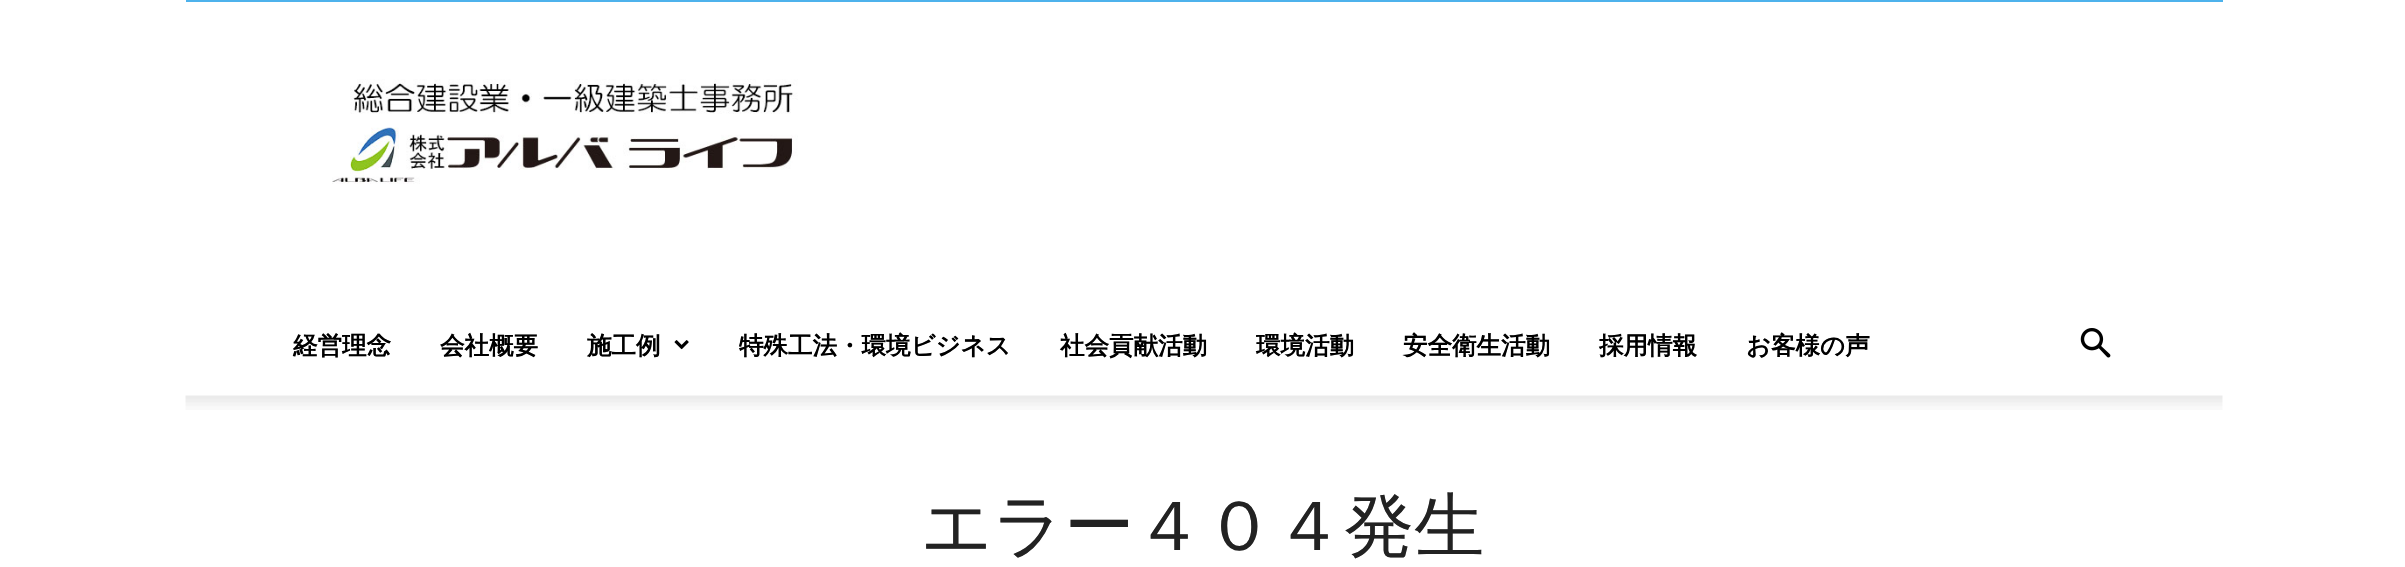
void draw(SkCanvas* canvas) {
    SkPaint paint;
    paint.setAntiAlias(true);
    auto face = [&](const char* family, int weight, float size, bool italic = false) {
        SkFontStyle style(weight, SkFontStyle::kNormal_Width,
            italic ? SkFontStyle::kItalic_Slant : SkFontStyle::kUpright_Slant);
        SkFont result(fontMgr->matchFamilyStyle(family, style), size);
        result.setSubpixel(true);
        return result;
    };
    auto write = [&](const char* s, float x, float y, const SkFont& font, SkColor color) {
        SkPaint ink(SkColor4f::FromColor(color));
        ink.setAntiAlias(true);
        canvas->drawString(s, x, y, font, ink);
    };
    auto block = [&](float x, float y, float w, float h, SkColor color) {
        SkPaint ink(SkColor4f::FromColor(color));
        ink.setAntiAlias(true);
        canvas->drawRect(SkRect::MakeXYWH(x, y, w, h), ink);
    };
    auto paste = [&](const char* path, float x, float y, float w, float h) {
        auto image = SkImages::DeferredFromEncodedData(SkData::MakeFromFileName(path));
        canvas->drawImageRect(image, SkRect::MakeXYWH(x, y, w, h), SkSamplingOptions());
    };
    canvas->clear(SK_ColorWHITE);
    block(186, 0, 2037, 2, SkColorSetRGB(77, 178, 236));
    paste("pic1.png", 332, 79, 466, 105);
    auto kFont1 = face("WenQuanYi Zen Hei", 700, 24.5f);
    write("経営理念", 293, 354, kFont1, SK_ColorBLACK);
    write("会社概要", 440, 354, kFont1, SK_ColorBLACK);
    write("施工例", 587, 354, kFont1, SK_ColorBLACK);
    paste("pic2.png", 674, 340, 15, 10);
    write("特殊工法・環境ビジネス", 739, 354, kFont1, SK_ColorBLACK);
    write("社会貢献活動", 1060, 354, kFont1, SK_ColorBLACK);
    write("環境活動", 1256, 354, kFont1, SK_ColorBLACK);
    write("安全衛生活動", 1403, 354, kFont1, SK_ColorBLACK);
    write("採用情報", 1599, 354, kFont1, SK_ColorBLACK);
    write("お客様の声", 1746, 354, kFont1, SK_ColorBLACK);
    paste("pic3.png", 2080, 328, 31, 30);
    paste("pic4.png", 185, 395, 2038, 15);
    auto kFont2 = face("WenQuanYi Zen Hei", 500, 70);
    write("エラー４０４発生", 921, 550, kFont2, SkColorSetRGB(34, 34, 34));
}
